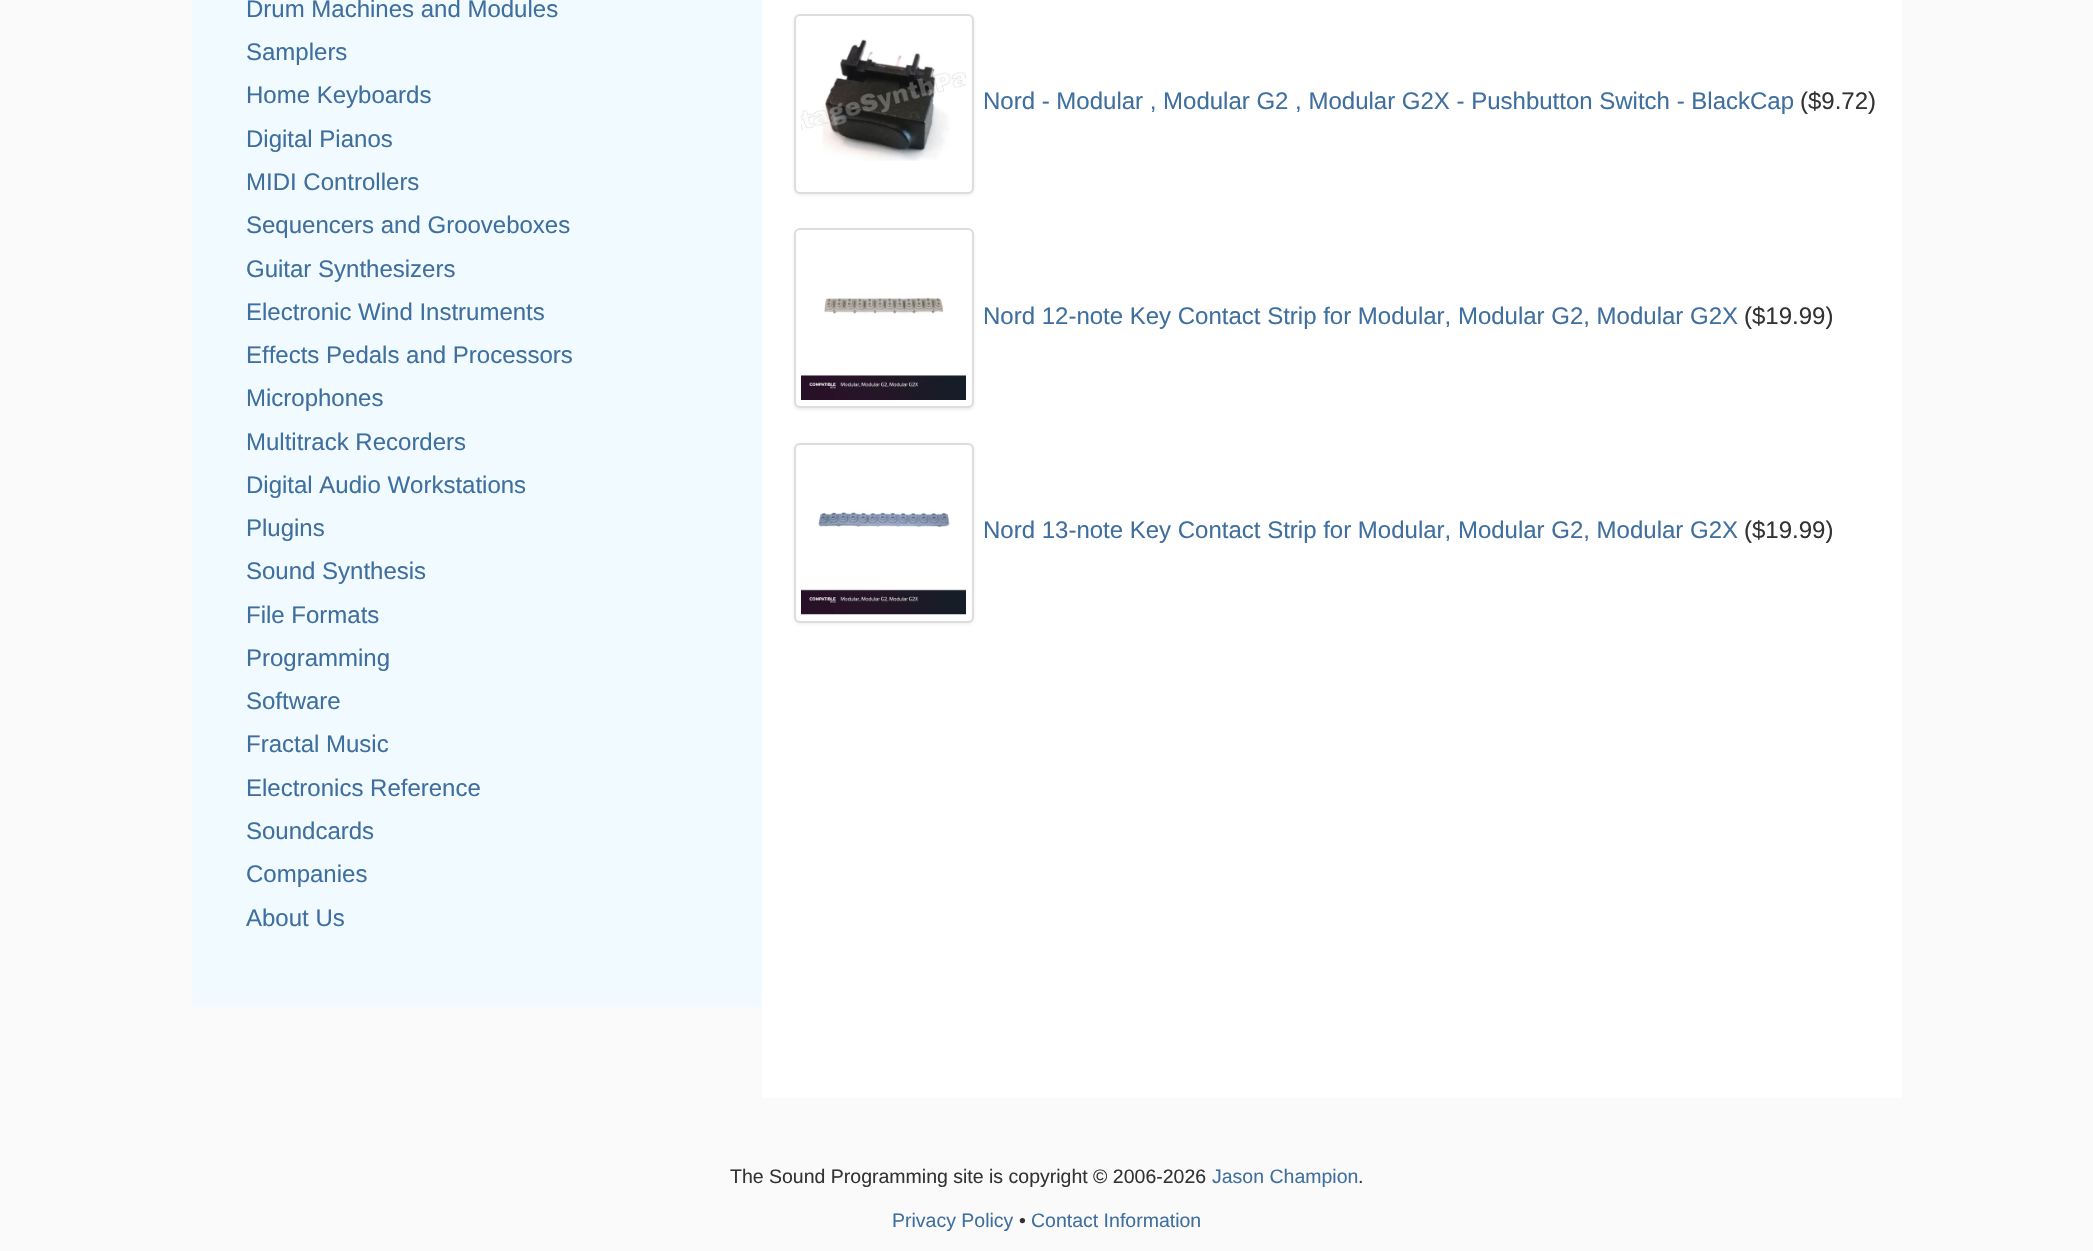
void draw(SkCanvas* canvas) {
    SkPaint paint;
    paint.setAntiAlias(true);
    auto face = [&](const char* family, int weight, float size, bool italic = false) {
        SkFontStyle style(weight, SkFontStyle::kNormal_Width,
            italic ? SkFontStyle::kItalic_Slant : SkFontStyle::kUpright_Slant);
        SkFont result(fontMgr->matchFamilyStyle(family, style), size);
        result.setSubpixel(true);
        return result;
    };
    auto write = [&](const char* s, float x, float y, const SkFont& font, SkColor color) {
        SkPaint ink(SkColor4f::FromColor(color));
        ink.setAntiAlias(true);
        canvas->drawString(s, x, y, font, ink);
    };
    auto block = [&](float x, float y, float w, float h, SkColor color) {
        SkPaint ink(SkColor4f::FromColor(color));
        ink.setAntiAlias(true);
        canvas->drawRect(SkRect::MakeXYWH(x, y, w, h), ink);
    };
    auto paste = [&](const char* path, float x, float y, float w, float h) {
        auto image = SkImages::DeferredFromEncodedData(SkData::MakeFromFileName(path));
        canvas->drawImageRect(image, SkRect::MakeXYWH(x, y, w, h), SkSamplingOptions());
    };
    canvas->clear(SkColorSetRGB(250, 250, 250));
    block(192, 0, 570, 1007, SkColorSetRGB(240, 250, 255));
    auto kFont1 = face("Liberation Sans", 400, 24);
    write("Drum Machines and Modules", 246, 17, kFont1, SkColorSetRGB(63, 111, 159));
    write("Samplers", 246, 60, kFont1, SkColorSetRGB(63, 111, 159));
    write("Home Keyboards", 246, 103, kFont1, SkColorSetRGB(63, 111, 159));
    write("Digital Pianos", 246, 147, kFont1, SkColorSetRGB(63, 111, 159));
    write("MIDI Controllers", 246, 190, kFont1, SkColorSetRGB(63, 111, 159));
    write("Sequencers and Grooveboxes", 246, 233, kFont1, SkColorSetRGB(63, 111, 159));
    write("Guitar Synthesizers", 246, 277, kFont1, SkColorSetRGB(63, 111, 159));
    write("Electronic Wind Instruments", 246, 320, kFont1, SkColorSetRGB(63, 111, 159));
    write("Effects Pedals and Processors", 246, 363, kFont1, SkColorSetRGB(63, 111, 159));
    write("Microphones", 246, 406, kFont1, SkColorSetRGB(63, 111, 159));
    write("Multitrack Recorders", 246, 450, kFont1, SkColorSetRGB(63, 111, 159));
    write("Digital Audio Workstations", 246, 493, kFont1, SkColorSetRGB(63, 111, 159));
    write("Plugins", 246, 536, kFont1, SkColorSetRGB(63, 111, 159));
    write("Sound Synthesis", 246, 579, kFont1, SkColorSetRGB(63, 111, 159));
    write("File Formats", 246, 623, kFont1, SkColorSetRGB(63, 111, 159));
    write("Programming", 246, 666, kFont1, SkColorSetRGB(63, 111, 159));
    write("Software", 246, 709, kFont1, SkColorSetRGB(63, 111, 159));
    write("Fractal Music", 246, 752, kFont1, SkColorSetRGB(63, 111, 159));
    write("Electronics Reference", 246, 796, kFont1, SkColorSetRGB(63, 111, 159));
    write("Soundcards", 246, 839, kFont1, SkColorSetRGB(63, 111, 159));
    write("Companies", 246, 882, kFont1, SkColorSetRGB(63, 111, 159));
    write("About Us", 246, 926, kFont1, SkColorSetRGB(63, 111, 159));
    block(762, 0, 1140, 1098, SK_ColorWHITE);
    paint.setColor(SkColorSetARGB(18, 0, 0, 0));
    paint.setMaskFilter(SkMaskFilter::MakeBlur(kNormal_SkBlurStyle, 1.5f));
    canvas->drawRoundRect(SkRect::MakeXYWH(794, 15, 180, 180), 6, 6, paint);
    paint.setMaskFilter(nullptr);
    paint.setColor(SK_ColorWHITE);
    canvas->drawRoundRect(SkRect::MakeXYWH(795, 15, 178, 178), 5, 5, paint);
    paint.setStyle(SkPaint::kStroke_Style);
    paint.setStrokeWidth(2);
    paint.setColor(SkColorSetRGB(221, 221, 221));
    canvas->drawRoundRect(SkRect::MakeXYWH(795, 15, 178, 178), 5, 5, paint);
    paste("pic1.png", 801, 39, 165, 122);
    write("Nord - Modular , Modular G2 , Modular G2X - Pushbutton Switch - BlackCap", 983, 109, kFont1, SkColorSetRGB(63, 111, 159));
    write("($9.72)", 1800, 109, kFont1, SkColorSetRGB(51, 51, 51));
    paint.setStyle(SkPaint::kFill_Style);
    paint.setColor(SkColorSetARGB(18, 0, 0, 0));
    paint.setMaskFilter(SkMaskFilter::MakeBlur(kNormal_SkBlurStyle, 1.5f));
    canvas->drawRoundRect(SkRect::MakeXYWH(794, 230, 180, 180), 6, 6, paint);
    paint.setMaskFilter(nullptr);
    paint.setColor(SK_ColorWHITE);
    canvas->drawRoundRect(SkRect::MakeXYWH(795, 229, 178, 178), 5, 5, paint);
    paint.setStyle(SkPaint::kStroke_Style);
    paint.setColor(SkColorSetRGB(221, 221, 221));
    canvas->drawRoundRect(SkRect::MakeXYWH(795, 229, 178, 178), 5, 5, paint);
    paste("pic2.png", 801, 297, 165, 103);
    write("Nord 12-note Key Contact Strip for Modular, Modular G2, Modular G2X", 983, 324, kFont1, SkColorSetRGB(63, 111, 159));
    write("($19.99)", 1744, 324, kFont1, SkColorSetRGB(51, 51, 51));
    paint.setStyle(SkPaint::kFill_Style);
    paint.setColor(SkColorSetARGB(18, 0, 0, 0));
    paint.setMaskFilter(SkMaskFilter::MakeBlur(kNormal_SkBlurStyle, 1.5f));
    canvas->drawRoundRect(SkRect::MakeXYWH(794, 444, 180, 180), 6, 6, paint);
    paint.setMaskFilter(nullptr);
    paint.setColor(SK_ColorWHITE);
    canvas->drawRoundRect(SkRect::MakeXYWH(795, 444, 178, 178), 5, 5, paint);
    paint.setStyle(SkPaint::kStroke_Style);
    paint.setColor(SkColorSetRGB(221, 221, 221));
    canvas->drawRoundRect(SkRect::MakeXYWH(795, 444, 178, 178), 5, 5, paint);
    paste("pic3.png", 801, 509, 165, 106);
    write("Nord 13-note Key Contact Strip for Modular, Modular G2, Modular G2X", 983, 538, kFont1, SkColorSetRGB(63, 111, 159));
    write("($19.99)", 1744, 538, kFont1, SkColorSetRGB(51, 51, 51));
    auto kFont2 = face("Liberation Sans", 400, 19.5f);
    write("The Sound Programming site is copyright © 2006-2026", 730, 1183, kFont2, SkColorSetRGB(51, 51, 51));
    write("Jason Champion", 1212, 1183, kFont2, SkColorSetRGB(63, 111, 159));
    write(".", 1358, 1183, kFont2, SkColorSetRGB(51, 51, 51));
    write("Privacy Policy", 892, 1227, kFont2, SkColorSetRGB(63, 111, 159));
    write("•", 1019, 1227, kFont2, SkColorSetRGB(51, 51, 51));
    write("Contact Information", 1031, 1227, kFont2, SkColorSetRGB(63, 111, 159));
}
